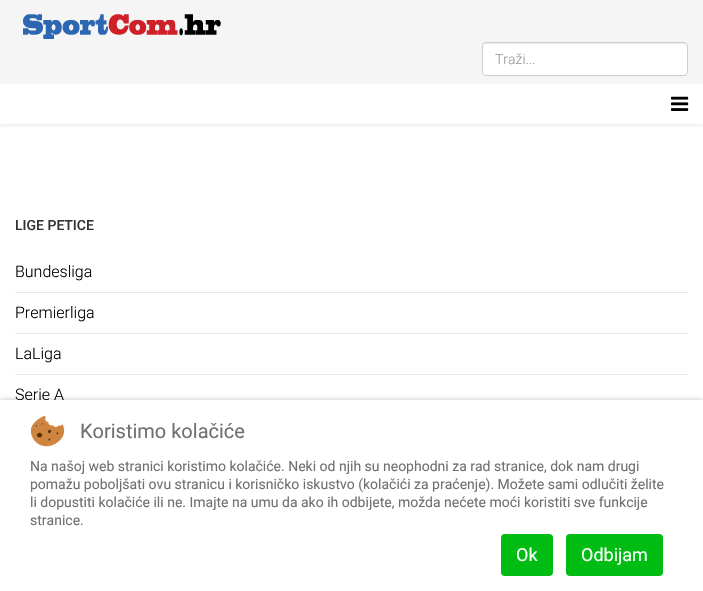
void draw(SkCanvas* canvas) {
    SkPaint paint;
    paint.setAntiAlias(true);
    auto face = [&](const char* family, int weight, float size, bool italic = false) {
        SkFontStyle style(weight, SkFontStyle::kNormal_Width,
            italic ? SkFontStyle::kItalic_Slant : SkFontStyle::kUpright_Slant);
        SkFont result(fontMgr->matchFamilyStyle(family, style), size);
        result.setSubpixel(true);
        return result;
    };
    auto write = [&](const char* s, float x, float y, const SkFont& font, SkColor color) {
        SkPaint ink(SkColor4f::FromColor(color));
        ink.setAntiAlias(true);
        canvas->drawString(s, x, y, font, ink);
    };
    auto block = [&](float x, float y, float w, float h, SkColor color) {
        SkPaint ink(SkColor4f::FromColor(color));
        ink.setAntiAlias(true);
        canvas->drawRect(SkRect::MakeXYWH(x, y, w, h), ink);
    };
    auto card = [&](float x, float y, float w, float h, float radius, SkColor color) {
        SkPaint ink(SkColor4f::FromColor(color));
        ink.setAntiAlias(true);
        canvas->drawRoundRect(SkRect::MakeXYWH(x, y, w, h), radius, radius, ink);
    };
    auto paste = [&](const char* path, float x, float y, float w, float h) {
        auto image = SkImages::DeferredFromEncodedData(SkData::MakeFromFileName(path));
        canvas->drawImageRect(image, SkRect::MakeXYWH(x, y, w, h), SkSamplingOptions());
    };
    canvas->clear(SK_ColorWHITE);
    block(0, 0, 703, 84, SkColorSetRGB(245, 245, 245));
    paste("pic1.png", 23, 14, 198, 25);
    card(482, 42, 206, 34, 4, SK_ColorWHITE);
    paint.setColor(SkColorSetRGB(236, 236, 236));
    canvas->drawPath(SkPathBuilder().moveTo(486, 44).lineTo(684, 44).cubicTo(686, 44, 687, 45, 687, 47).cubicTo(687, 45, 686, 43, 684, 43).lineTo(486, 43).cubicTo(484, 43, 483, 45, 483, 47).cubicTo(483, 45, 484, 44, 486, 44).close().detach(), paint);
    paint.setStyle(SkPaint::kStroke_Style);
    paint.setStrokeWidth(1);
    paint.setColor(SkColorSetRGB(204, 204, 204));
    canvas->drawRoundRect(SkRect::MakeXYWH(482.5f, 42.5f, 205, 33), 3.5f, 3.5f, paint);
    auto kFont1 = face("Roboto", 300, 14);
    write("Traži...", 495, 64, kFont1, SkColorSetRGB(153, 153, 153));
    canvas->save();
    canvas->clipRect(SkRect::MakeXYWH(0, 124, 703, 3));
    paint.setStyle(SkPaint::kFill_Style);
    paint.setColor(SkColorSetARGB(13, 0, 0, 0));
    paint.setMaskFilter(SkMaskFilter::MakeBlur(kNormal_SkBlurStyle, 1.5f));
    canvas->drawRect(SkRect::MakeXYWH(0, 87, 703, 40), paint);
    paint.setMaskFilter(nullptr);
    canvas->restore();
    paste("pic2.png", 671, 96, 18, 15);
    auto kFont2 = face("Roboto", 500, 14);
    write("LIGE PETICE", 15, 230, kFont2, SkColorSetRGB(51, 51, 51));
    block(15, 292, 673, 1, SkColorSetRGB(232, 232, 232));
    auto kFont3 = face("Roboto", 300, 16);
    write("Bundesliga", 15, 277, kFont3, SK_ColorBLACK);
    block(15, 333, 673, 1, SkColorSetRGB(232, 232, 232));
    write("Premierliga", 15, 318, kFont3, SK_ColorBLACK);
    block(15, 374, 673, 1, SkColorSetRGB(232, 232, 232));
    write("LaLiga", 15, 359, kFont3, SK_ColorBLACK);
    write("Serie A", 15, 400, kFont3, SK_ColorBLACK);
    paint.setColor(SkColorSetARGB(64, 0, 0, 0));
    paint.setMaskFilter(SkMaskFilter::MakeBlur(kNormal_SkBlurStyle, 2.5f));
    canvas->drawRect(SkRect::MakeXYWH(0, 400, 703, 191), paint);
    paint.setMaskFilter(nullptr);
    block(0, 400, 703, 191, SK_ColorWHITE);
    paste("pic3.png", 30, 415, 35, 32);
    auto kFont4 = face("Roboto", 400, 20);
    write("Koristimo kolačiće", 80, 438, kFont4, SkColorSetRGB(112, 112, 112));
    auto kFont5 = face("Roboto", 400, 14);
    write("Na našoj web stranici koristimo kolačiće. Neki od njih su neophodni za rad stranice, dok nam drugi", 30, 471, kFont5, SkColorSetRGB(112, 112, 112));
    write("pomažu poboljšati ovu stranicu i korisničko iskustvo (kolačići za praćenje). Možete sami odlučiti želite", 30, 489, kFont5, SkColorSetRGB(112, 112, 112));
    write("li dopustiti kolačiće ili ne. Imajte na umu da ako ih odbijete, možda nećete moći koristiti sve funkcije", 30, 507, kFont5, SkColorSetRGB(112, 112, 112));
    write("stranice.", 30, 525, kFont5, SkColorSetRGB(112, 112, 112));
    card(501, 534, 52, 42, 4, SkColorSetRGB(0, 188, 19));
    auto kFont6 = face("Roboto", 400, 18);
    write("Ok", 516, 561, kFont6, SK_ColorWHITE);
    card(566, 534, 97, 42, 4, SkColorSetRGB(0, 188, 19));
    write("Odbijam", 581, 561, kFont6, SK_ColorWHITE);
}
